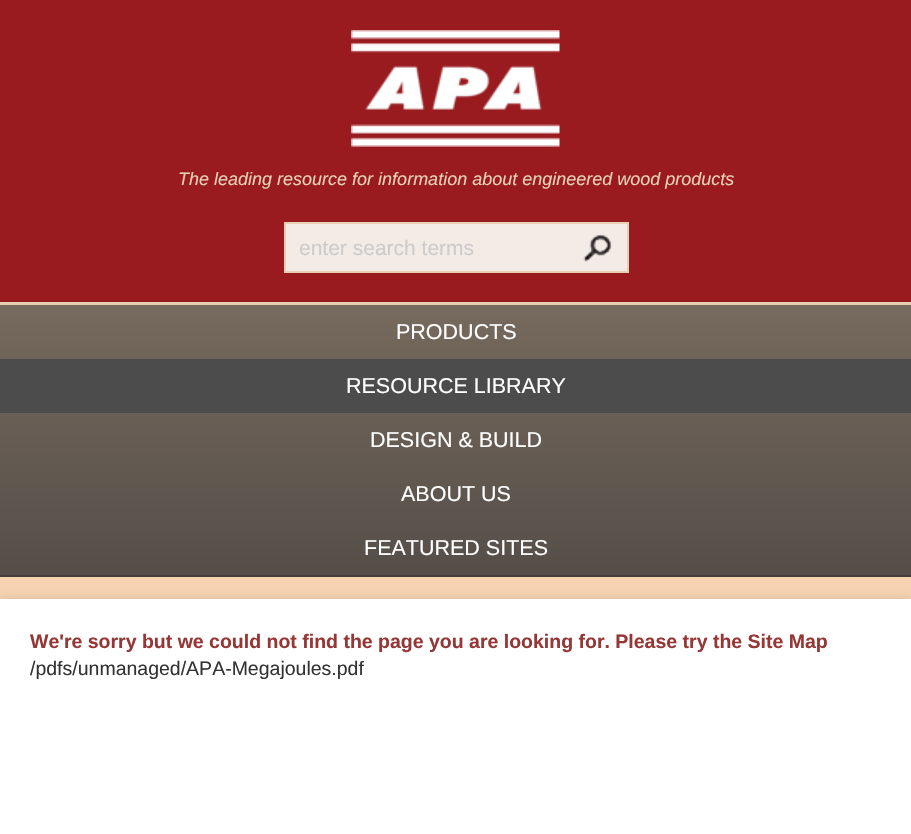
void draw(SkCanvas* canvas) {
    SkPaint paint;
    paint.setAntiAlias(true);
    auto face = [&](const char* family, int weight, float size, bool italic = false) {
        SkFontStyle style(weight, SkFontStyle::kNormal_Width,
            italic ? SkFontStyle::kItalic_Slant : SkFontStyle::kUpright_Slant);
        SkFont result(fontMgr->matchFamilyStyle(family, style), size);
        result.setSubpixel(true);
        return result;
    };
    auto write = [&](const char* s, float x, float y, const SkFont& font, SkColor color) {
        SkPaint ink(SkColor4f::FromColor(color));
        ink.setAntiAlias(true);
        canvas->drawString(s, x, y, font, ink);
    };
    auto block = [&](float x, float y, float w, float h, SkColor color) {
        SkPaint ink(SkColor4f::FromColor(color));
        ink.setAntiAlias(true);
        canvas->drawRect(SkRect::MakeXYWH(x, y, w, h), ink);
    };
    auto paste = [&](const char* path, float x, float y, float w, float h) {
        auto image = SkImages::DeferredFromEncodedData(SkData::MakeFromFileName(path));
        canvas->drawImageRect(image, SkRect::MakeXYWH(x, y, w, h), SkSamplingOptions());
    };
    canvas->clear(SkColorSetRGB(246, 210, 177));
    block(0, 0, 911, 302, SkColorSetRGB(153, 27, 31));
    paste("pic1.png", 351, 30, 209, 117);
    auto kFont1 = face("Liberation Sans", 400, 18, true);
    write("The leading resource for information about engineered wood products", 178, 185, kFont1, SkColorSetRGB(232, 208, 183));
    block(286, 224, 341, 47, SkColorSetRGB(243, 235, 230));
    paste("pic2.png", 583, 234, 29, 28);
    paint.setStyle(SkPaint::kStroke_Style);
    paint.setStrokeWidth(2);
    paint.setColor(SkColorSetRGB(232, 208, 183));
    canvas->drawRect(SkRect::MakeXYWH(285, 223, 343, 49), paint);
    auto kFont2 = face("Liberation Sans", 400, 21);
    write("enter search terms", 299, 255, kFont2, SkColorSetRGB(204, 204, 204));
    paint.setStyle(SkPaint::kFill_Style);
    {
        const SkColor colors[] = {SkColorSetRGB(119, 106, 94), SkColorSetRGB(85, 78, 72)};
        const float stops[] = {0, 1};
        const SkPoint ends[] = {{456, 304}, {456, 575}};
        paint.setShader(SkGradientShader::MakeLinear(ends, colors, stops, 2, SkTileMode::kClamp));
        paint.setAlpha(255);
    }
    canvas->drawRect(SkRect::MakeXYWH(0, 305, 911, 270), paint);
    block(0, 302, 911, 3, SkColorSetRGB(229, 206, 180));
    block(0, 575, 911, 2, SkColorSetRGB(66, 61, 58));
    auto kFont3 = face("Liberation Sans", 400, 21.5f);
    write("PRODUCTS", 396, 339, kFont3, SK_ColorWHITE);
    block(0, 359, 911, 54, SkColorSetRGB(76, 76, 76));
    write("RESOURCE LIBRARY", 346, 393, kFont3, SK_ColorWHITE);
    write("DESIGN & BUILD", 370, 447, kFont3, SK_ColorWHITE);
    write("ABOUT US", 401, 501, kFont3, SK_ColorWHITE);
    write("FEATURED SITES", 364, 555, kFont3, SK_ColorWHITE);
    paint.setShader(nullptr);
    paint.setColor(SkColorSetARGB(179, 0, 0, 0));
    paint.setMaskFilter(SkMaskFilter::MakeBlur(kNormal_SkBlurStyle, 7));
    canvas->drawRect(SkRect::MakeXYWH(0, 608, 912, 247), paint);
    paint.setMaskFilter(nullptr);
    block(0, 599, 911, 235, SK_ColorWHITE);
    auto kFont4 = face("Liberation Sans", 700, 19.5f);
    write("We're sorry but we could not find the page you are looking for. Please try the Site Map", 30, 648, kFont4, SkColorSetRGB(149, 55, 53));
    auto kFont5 = face("Liberation Sans", 400, 19.5f);
    write("/pdfs/unmanaged/APA-Megajoules.pdf", 30, 675, kFont5, SkColorSetRGB(51, 51, 51));
}
